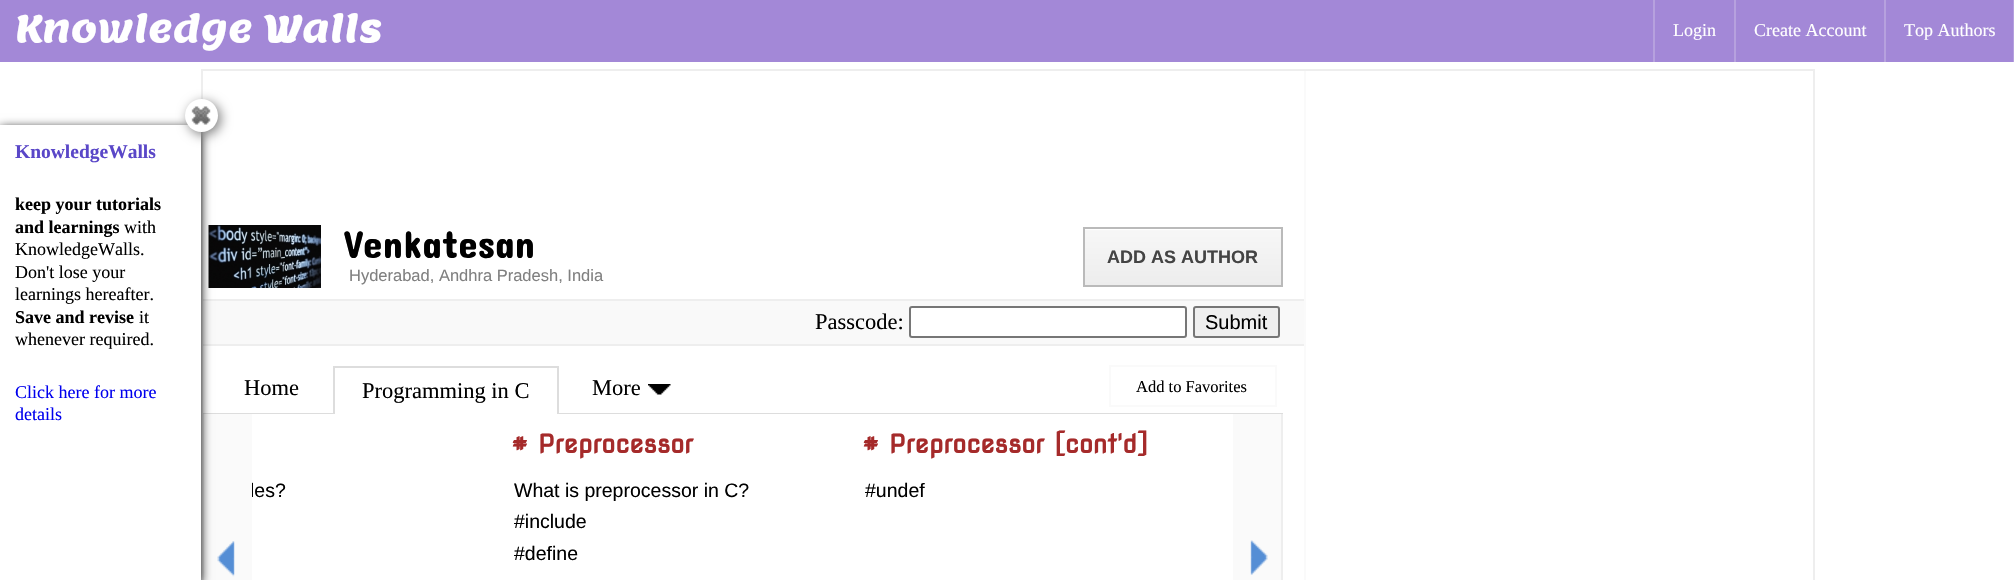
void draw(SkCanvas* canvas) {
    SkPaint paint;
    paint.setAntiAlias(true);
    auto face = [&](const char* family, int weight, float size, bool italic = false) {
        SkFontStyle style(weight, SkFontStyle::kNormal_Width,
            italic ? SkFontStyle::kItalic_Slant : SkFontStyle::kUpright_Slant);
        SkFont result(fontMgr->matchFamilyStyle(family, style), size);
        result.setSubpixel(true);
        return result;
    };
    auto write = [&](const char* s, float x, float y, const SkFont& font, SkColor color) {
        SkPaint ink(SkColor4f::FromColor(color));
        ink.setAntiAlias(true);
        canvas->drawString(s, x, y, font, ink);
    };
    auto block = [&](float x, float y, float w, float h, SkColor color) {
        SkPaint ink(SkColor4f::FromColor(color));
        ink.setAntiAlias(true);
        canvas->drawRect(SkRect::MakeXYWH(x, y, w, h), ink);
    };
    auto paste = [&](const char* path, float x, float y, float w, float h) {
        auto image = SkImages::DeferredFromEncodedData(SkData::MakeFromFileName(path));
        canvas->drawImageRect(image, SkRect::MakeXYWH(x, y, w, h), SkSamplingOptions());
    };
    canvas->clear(SK_ColorWHITE);
    block(0, 0, 2013, 62, SkColorSetRGB(163, 136, 215));
    auto kFont1 = face("Lemon", 400, 37.5f);
    write("Knowledge Walls", 15, 42, kFont1, SK_ColorWHITE);
    block(1653, 0, 2, 62, SkColorSetRGB(182, 161, 222));
    auto kFont2 = face("Liberation Serif", 400, 18);
    write("Login", 1673, 36, kFont2, SK_ColorWHITE);
    block(1734, 0, 2, 62, SkColorSetRGB(182, 161, 222));
    write("Create Account", 1754, 36, kFont2, SK_ColorWHITE);
    block(2013, 0, 1, 62, SkColorSetRGB(182, 161, 222));
    block(1884, 0, 2, 62, SkColorSetRGB(182, 161, 222));
    write("Top Authors", 1904, 36, kFont2, SK_ColorWHITE);
    paint.setStyle(SkPaint::kStroke_Style);
    paint.setStrokeWidth(2);
    paint.setColor(SkColorSetRGB(238, 238, 238));
    canvas->drawRect(SkRect::MakeXYWH(202, 70, 1612, 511), paint);
    paste("pic1.png", 208, 225, 113, 63);
    auto kFont3 = face("Concert One", 400, 39);
    write("Venkatesan", 344, 258, kFont3, SK_ColorBLACK);
    auto kFont4 = face("Liberation Sans", 400, 16.5f);
    write("Hyderabad, Andhra Pradesh, India", 349, 281, kFont4, SkColorSetRGB(128, 128, 128));
    paint.setStyle(SkPaint::kFill_Style);
    {
        const SkColor colors[] = {SkColorSetRGB(247, 247, 247), SkColorSetRGB(237, 237, 237)};
        const float stops[] = {0, 1};
        const SkPoint ends[] = {{1183, 228}, {1183, 285}};
        paint.setShader(SkGradientShader::MakeLinear(ends, colors, stops, 2, SkTileMode::kClamp));
        paint.setAlpha(255);
    }
    canvas->drawRect(SkRect::MakeXYWH(1085, 230, 196, 55), paint);
    paint.setStyle(SkPaint::kStroke_Style);
    paint.setShader(nullptr);
    paint.setColor(SkColorSetRGB(186, 186, 186));
    canvas->drawRect(SkRect::MakeXYWH(1084, 228, 198, 58), paint);
    auto kFont5 = face("Liberation Sans", 700, 18);
    write("ADD AS AUTHOR", 1107, 263, kFont5, SkColorSetRGB(68, 68, 68));
    block(203, 301, 1101, 43, SkColorSetRGB(249, 249, 249));
    block(203, 299, 1101, 2, SkColorSetRGB(238, 238, 238));
    block(203, 344, 1101, 2, SkColorSetRGB(238, 238, 238));
    auto kFont6 = face("Liberation Serif", 400, 22.5f);
    write("Passcode:", 815, 329, kFont6, SK_ColorBLACK);
    paint.setStyle(SkPaint::kFill_Style);
    paint.setColor(SK_ColorWHITE);
    canvas->drawRoundRect(SkRect::MakeXYWH(910, 307, 276, 30), 2, 2, paint);
    paint.setStyle(SkPaint::kStroke_Style);
    paint.setColor(SkColorSetRGB(118, 118, 118));
    canvas->drawRoundRect(SkRect::MakeXYWH(910, 307, 276, 30), 2, 2, paint);
    paint.setStyle(SkPaint::kFill_Style);
    paint.setColor(SkColorSetRGB(239, 239, 239));
    canvas->drawRoundRect(SkRect::MakeXYWH(1194, 307, 85, 30), 2, 2, paint);
    paint.setStyle(SkPaint::kStroke_Style);
    paint.setColor(SkColorSetRGB(118, 118, 118));
    canvas->drawRoundRect(SkRect::MakeXYWH(1194, 307, 85, 30), 2, 2, paint);
    auto kFont7 = face("Liberation Sans", 400, 20);
    write("Submit", 1205, 329, kFont7, SK_ColorBLACK);
    block(203, 413, 1080, 1, SkColorSetRGB(221, 221, 221));
    write("Home", 244, 395, kFont6, SK_ColorBLACK);
    block(335, 413, 222, 1, SK_ColorWHITE);
    block(333, 366, 225, 2, SkColorSetRGB(221, 221, 221));
    block(557, 366, 2, 48, SkColorSetRGB(221, 221, 221));
    block(333, 366, 2, 48, SkColorSetRGB(221, 221, 221));
    write("Programming in C", 362, 398, kFont6, SK_ColorBLACK);
    write("More", 592, 395, kFont6, SK_ColorBLACK);
    paste("pic2.png", 648, 384, 23, 11);
    paint.setColor(SkColorSetRGB(250, 250, 250));
    canvas->drawRect(SkRect::MakeXYWH(1110, 366, 166, 40), paint);
    auto kFont8 = face("Liberation Serif", 400, 16.5f);
    write("Add to Favorites", 1136, 392, kFont8, SK_ColorBLACK);
    block(1281, 414, 2, 166, SkColorSetRGB(238, 238, 238));
    block(203, 414, 1, 166, SkColorSetRGB(238, 238, 238));
    block(204, 414, 48, 166, SkColorSetRGB(250, 250, 250));
    paste("pic3.png", 217, 541, 18, 36);
    canvas->save();
    canvas->clipRect(SkRect::MakeXYWH(252, 414, 981, 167));
    auto kFont9 = face("Liberation Sans", 400, 19.5f);
    write("les?", 250, 497, kFont9, SK_ColorBLACK);
    canvas->restore();
    auto kFont10 = face("Nova Square", 700, 25.5f);
    write("# Preprocessor", 511, 453, kFont10, SkColorSetRGB(165, 42, 42));
    write("What is preprocessor in C?", 514, 497, kFont9, SK_ColorBLACK);
    write("#include", 514, 528, kFont9, SK_ColorBLACK);
    write("#define", 514, 560, kFont9, SK_ColorBLACK);
    write("# Preprocessor [cont'd]", 862, 453, kFont10, SkColorSetRGB(165, 42, 42));
    write("#undef", 865, 497, kFont9, SK_ColorBLACK);
    block(1233, 414, 48, 166, SkColorSetRGB(250, 250, 250));
    paste("pic4.png", 1250, 540, 18, 35);
    block(1304, 71, 2, 509, SkColorSetRGB(250, 250, 250));
    canvas->save();
    canvas->clipPath(SkPathBuilder(SkPathFillType::kEvenOdd).moveTo(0, 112).lineTo(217, 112).lineTo(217, 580).lineTo(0, 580).close().moveTo(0, 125).lineTo(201, 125).lineTo(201, 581).lineTo(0, 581).close().detach(), true);
    paint.setStyle(SkPaint::kFill_Style);
    paint.setColor(SK_ColorBLACK);
    paint.setMaskFilter(SkMaskFilter::MakeBlur(kNormal_SkBlurStyle, 5));
    canvas->drawRect(SkRect::MakeXYWH(0, 128, 201, 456), paint);
    paint.setMaskFilter(nullptr);
    canvas->restore();
    auto kFont11 = face("Liberation Serif", 700, 19.5f);
    write("KnowledgeWalls", 15, 158, kFont11, SkColorSetRGB(90, 71, 200));
    paint.setColor(SkColorSetRGB(128, 128, 128));
    paint.setMaskFilter(SkMaskFilter::MakeBlur(kNormal_SkBlurStyle, 6));
    canvas->drawRoundRect(SkRect::MakeXYWH(188, 102, 33, 33), 16.5f, 16.5f, paint);
    paint.setMaskFilter(nullptr);
    paint.setColor(SK_ColorWHITE);
    canvas->drawCircle(201.5f, 115.5f, 16.5f, paint);
    paste("pic5.png", 191, 106, 20, 19);
    auto kFont12 = face("Liberation Serif", 700, 18);
    write("keep your tutorials", 15, 210, kFont12, SK_ColorBLACK);
    write("and learnings", 15, 233, kFont12, SK_ColorBLACK);
    write("with", 124, 233, kFont2, SK_ColorBLACK);
    write("KnowledgeWalls.", 15, 255, kFont2, SK_ColorBLACK);
    write("Don't lose your", 15, 278, kFont2, SK_ColorBLACK);
    write("learnings hereafter.", 15, 300, kFont2, SK_ColorBLACK);
    write("Save and revise", 15, 323, kFont12, SK_ColorBLACK);
    write("it", 139, 323, kFont2, SK_ColorBLACK);
    write("whenever required.", 15, 345, kFont2, SK_ColorBLACK);
    write("Click here for more", 15, 398, kFont2, SkColorSetRGB(0, 0, 238));
    write("details", 15, 420, kFont2, SkColorSetRGB(0, 0, 238));
}
